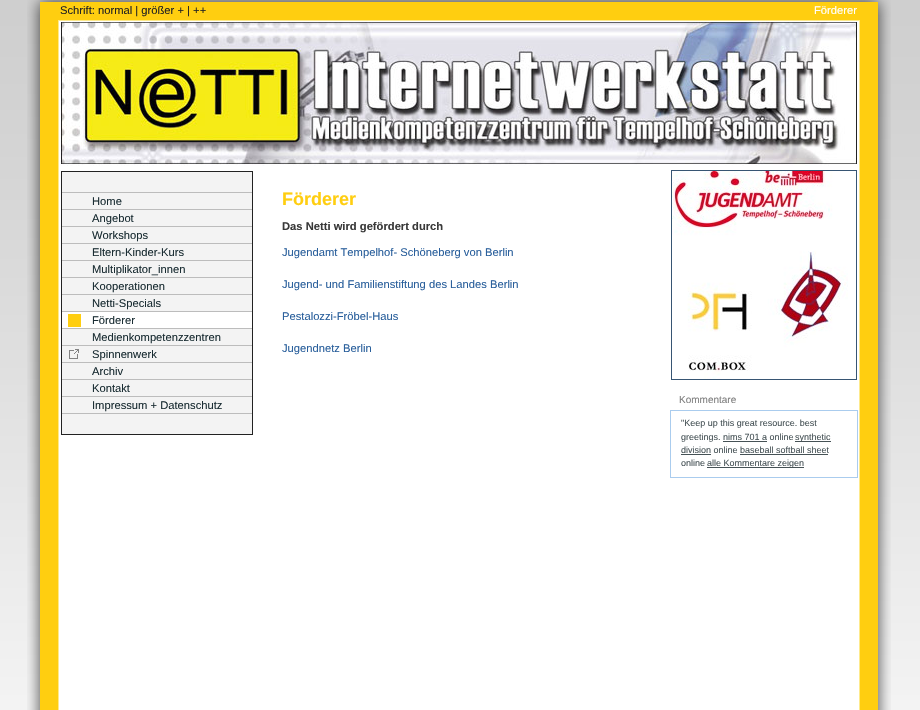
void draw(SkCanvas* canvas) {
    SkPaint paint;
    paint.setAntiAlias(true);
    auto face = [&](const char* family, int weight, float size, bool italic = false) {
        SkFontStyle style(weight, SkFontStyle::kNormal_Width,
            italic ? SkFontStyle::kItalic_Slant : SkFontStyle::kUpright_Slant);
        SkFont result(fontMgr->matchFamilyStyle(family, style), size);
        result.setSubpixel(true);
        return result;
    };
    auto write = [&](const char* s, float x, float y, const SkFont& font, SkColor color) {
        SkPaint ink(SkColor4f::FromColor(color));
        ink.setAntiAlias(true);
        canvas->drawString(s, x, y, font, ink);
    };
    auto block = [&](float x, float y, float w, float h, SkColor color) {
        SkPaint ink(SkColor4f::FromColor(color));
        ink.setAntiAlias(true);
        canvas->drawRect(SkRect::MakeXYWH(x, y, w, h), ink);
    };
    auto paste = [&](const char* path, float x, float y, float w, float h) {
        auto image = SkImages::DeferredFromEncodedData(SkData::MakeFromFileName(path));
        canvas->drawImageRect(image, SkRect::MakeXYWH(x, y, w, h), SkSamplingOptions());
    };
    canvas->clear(SK_ColorWHITE);
    paste("pic1.png", 0, 0, 920, 710);
    paste("pic2.png", 27, 0, 864, 710);
    auto kFont1 = face("Liberation Sans", 400, 11.2f);
    write("Schrift: normal | größer + | ++", 60, 14, kFont1, SkColorSetRGB(34, 34, 34));
    write("Förderer", 814, 14, kFont1, SK_ColorWHITE);
    paste("pic3.png", 61, 22, 796, 144);
    paint.setColor(SkColorSetRGB(243, 243, 243));
    canvas->drawRect(SkRect::MakeXYWH(61.5f, 171.5f, 191, 263), paint);
    paint.setStyle(SkPaint::kStroke_Style);
    paint.setStrokeWidth(1);
    paint.setColor(SkColorSetRGB(34, 34, 34));
    canvas->drawRect(SkRect::MakeXYWH(61.5f, 171.5f, 191, 263), paint);
    block(62, 192, 190, 1, SkColorSetRGB(188, 188, 188));
    block(62, 209, 190, 1, SkColorSetRGB(188, 188, 188));
    write("Home", 92, 205, kFont1, SkColorSetRGB(25, 44, 50));
    block(62, 226, 190, 1, SkColorSetRGB(188, 188, 188));
    write("Angebot", 92, 222, kFont1, SkColorSetRGB(25, 44, 50));
    block(62, 243, 190, 1, SkColorSetRGB(188, 188, 188));
    write("Workshops", 92, 239, kFont1, SkColorSetRGB(25, 44, 50));
    block(62, 260, 190, 1, SkColorSetRGB(188, 188, 188));
    write("Eltern-Kinder-Kurs", 92, 256, kFont1, SkColorSetRGB(25, 44, 50));
    block(62, 277, 190, 1, SkColorSetRGB(188, 188, 188));
    write("Multiplikator_innen", 92, 273, kFont1, SkColorSetRGB(25, 44, 50));
    block(62, 294, 190, 1, SkColorSetRGB(188, 188, 188));
    write("Kooperationen", 92, 290, kFont1, SkColorSetRGB(25, 44, 50));
    block(62, 311, 190, 1, SkColorSetRGB(188, 188, 188));
    write("Netti-Specials", 92, 307, kFont1, SkColorSetRGB(25, 44, 50));
    block(62, 312, 190, 16, SK_ColorWHITE);
    block(68, 314, 13, 13, SkColorSetRGB(255, 206, 16));
    block(62, 328, 190, 1, SkColorSetRGB(188, 188, 188));
    write("Förderer", 92, 324, kFont1, SkColorSetRGB(25, 44, 50));
    block(62, 345, 190, 1, SkColorSetRGB(188, 188, 188));
    write("Medienkompetenzzentren", 92, 341, kFont1, SkColorSetRGB(25, 44, 50));
    paste("pic4.png", 69, 349, 10, 10);
    block(62, 362, 190, 1, SkColorSetRGB(188, 188, 188));
    write("Spinnenwerk", 92, 358, kFont1, SkColorSetRGB(25, 44, 50));
    block(62, 379, 190, 1, SkColorSetRGB(188, 188, 188));
    write("Archiv", 92, 375, kFont1, SkColorSetRGB(25, 44, 50));
    block(62, 396, 190, 1, SkColorSetRGB(188, 188, 188));
    write("Kontakt", 92, 392, kFont1, SkColorSetRGB(25, 44, 50));
    block(62, 413, 190, 1, SkColorSetRGB(188, 188, 188));
    write("Impressum + Datenschutz", 92, 409, kFont1, SkColorSetRGB(25, 44, 50));
    auto kFont2 = face("Liberation Sans", 700, 18);
    write("Förderer", 282, 205, kFont2, SkColorSetRGB(255, 206, 16));
    auto kFont3 = face("Liberation Sans", 700, 11.2f);
    write("Das Netti wird gefördert durch", 282, 230, kFont3, SkColorSetRGB(57, 57, 57));
    write("Jugendamt Tempelhof- Schöneberg von Berlin", 282, 256, kFont1, SkColorSetRGB(40, 94, 155));
    write("Jugend- und Familienstiftung des Landes Berlin", 282, 288, kFont1, SkColorSetRGB(40, 94, 155));
    write("Pestalozzi-Fröbel-Haus", 282, 320, kFont1, SkColorSetRGB(40, 94, 155));
    write("Jugendnetz Berlin", 282, 352, kFont1, SkColorSetRGB(40, 94, 155));
    paint.setColor(SkColorSetRGB(55, 85, 115));
    canvas->drawRect(SkRect::MakeXYWH(671.5f, 170.5f, 185, 209), paint);
    paste("pic5.png", 672, 171, 176, 208);
    auto kFont4 = face("Liberation Sans", 400, 10);
    write("Kommentare", 679, 403, kFont4, SkColorSetRGB(128, 128, 128));
    paint.setColor(SkColorSetRGB(170, 204, 238));
    canvas->drawRect(SkRect::MakeXYWH(670.5f, 410.5f, 187, 67), paint);
    auto kFont5 = face("Liberation Sans", 400, 9);
    write("\"Keep up this great resource. best", 681, 426, kFont5, SkColorSetRGB(70, 82, 86));
    write("greetings. nims 701 a online", 681, 440, kFont5, SkColorSetRGB(70, 82, 86));
    block(795, 441, 36, 1, SkColorSetRGB(70, 82, 86));
    write("synthetic", 795, 440, kFont5, SkColorSetRGB(70, 82, 86));
    block(723, 441, 44, 1, SkColorSetRGB(70, 82, 86));
    write("division online baseball softball sheet", 681, 453, kFont5, SkColorSetRGB(70, 82, 86));
    block(681, 454, 30, 1, SkColorSetRGB(70, 82, 86));
    block(740, 454, 88, 1, SkColorSetRGB(70, 82, 86));
    write("online", 681, 466, kFont5, SkColorSetRGB(70, 82, 86));
    block(707, 467, 97, 1, SkColorSetRGB(70, 82, 86));
    write("alle Kommentare zeigen", 707, 466, kFont5, SkColorSetRGB(70, 82, 86));
}
